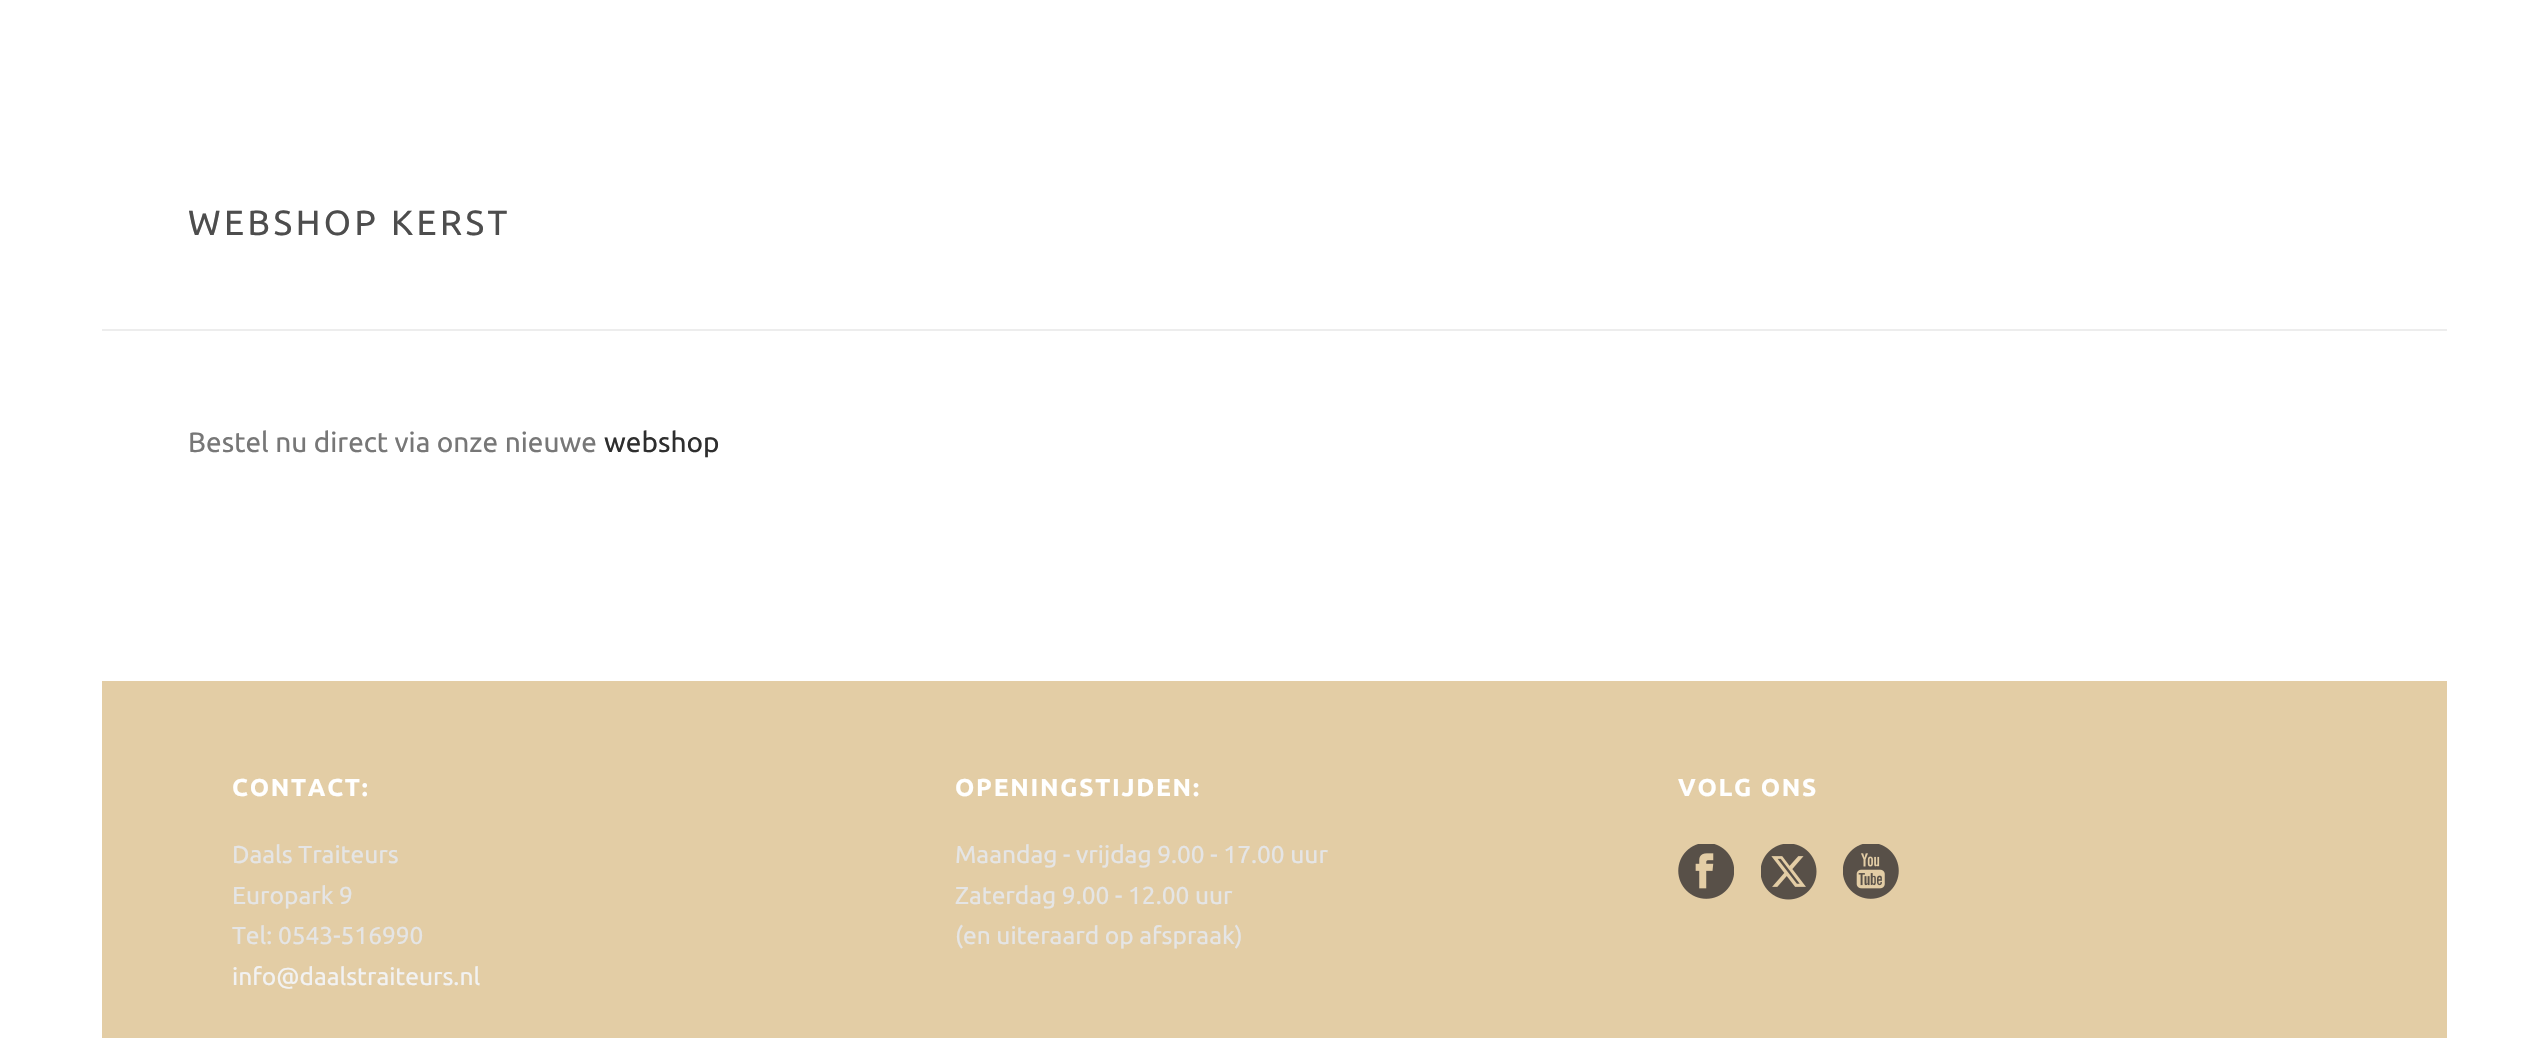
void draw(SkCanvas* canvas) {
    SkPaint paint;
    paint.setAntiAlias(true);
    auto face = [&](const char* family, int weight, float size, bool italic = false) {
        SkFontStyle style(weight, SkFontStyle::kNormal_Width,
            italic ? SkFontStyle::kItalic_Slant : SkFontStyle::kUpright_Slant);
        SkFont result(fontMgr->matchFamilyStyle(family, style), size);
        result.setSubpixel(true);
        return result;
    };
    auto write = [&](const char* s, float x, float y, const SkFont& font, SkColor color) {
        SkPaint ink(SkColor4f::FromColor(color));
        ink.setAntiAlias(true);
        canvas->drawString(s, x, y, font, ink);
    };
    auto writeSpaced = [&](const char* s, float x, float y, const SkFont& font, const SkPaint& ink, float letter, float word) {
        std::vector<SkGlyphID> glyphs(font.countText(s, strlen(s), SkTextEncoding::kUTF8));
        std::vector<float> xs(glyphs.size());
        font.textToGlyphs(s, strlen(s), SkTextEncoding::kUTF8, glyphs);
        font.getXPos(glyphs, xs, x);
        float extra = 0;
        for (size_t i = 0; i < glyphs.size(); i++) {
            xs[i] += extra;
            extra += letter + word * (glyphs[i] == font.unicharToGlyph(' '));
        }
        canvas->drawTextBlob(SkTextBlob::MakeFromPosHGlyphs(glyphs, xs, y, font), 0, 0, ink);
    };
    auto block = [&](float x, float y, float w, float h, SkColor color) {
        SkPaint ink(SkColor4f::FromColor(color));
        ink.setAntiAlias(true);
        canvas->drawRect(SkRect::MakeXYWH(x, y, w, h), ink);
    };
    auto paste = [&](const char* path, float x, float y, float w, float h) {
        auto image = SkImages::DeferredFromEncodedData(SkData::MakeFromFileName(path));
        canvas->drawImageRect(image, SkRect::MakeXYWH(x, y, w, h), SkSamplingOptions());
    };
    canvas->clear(SK_ColorWHITE);
    block(102, 329, 2345, 2, SkColorSetRGB(237, 237, 237));
    auto kFont1 = face("Ubuntu", 400, 35);
    paint.setColor(SkColorSetRGB(77, 77, 77));
    writeSpaced("WEBSHOP KERST", 188, 235, kFont1, paint, 3.5f, 0);
    auto kFont2 = face("Ubuntu", 400, 28);
    write("Bestel nu direct via onze nieuwe", 188, 452, kFont2, SkColorSetRGB(119, 119, 119));
    write("webshop", 604, 452, kFont2, SkColorSetRGB(46, 46, 46));
    block(102, 681, 2345, 357, SkColorSetRGB(227, 205, 165));
    auto kFont3 = face("Ubuntu", 700, 24.5f);
    paint.setColor(SK_ColorWHITE);
    writeSpaced("CONTACT:", 232, 796, kFont3, paint, 1.75f, 0);
    auto kFont4 = face("Ubuntu", 400, 24.5f);
    write("Daals Traiteurs", 232, 863, kFont4, SkColorSetRGB(229, 229, 229));
    write("Europark 9", 232, 904, kFont4, SkColorSetRGB(229, 229, 229));
    write("Tel: 0543-516990", 232, 944, kFont4, SkColorSetRGB(229, 229, 229));
    write("info@daalstraiteurs.nl", 232, 985, kFont4, SkColorSetRGB(242, 242, 242));
    writeSpaced("OPENINGSTIJDEN:", 955, 796, kFont3, paint, 1.75f, 0);
    write("Maandag - vrijdag 9.00 - 17.00 uur", 955, 863, kFont4, SkColorSetRGB(229, 229, 229));
    write("Zaterdag 9.00 - 12.00 uur", 955, 904, kFont4, SkColorSetRGB(229, 229, 229));
    write("(en uiteraard op afspraak)", 955, 944, kFont4, SkColorSetRGB(229, 229, 229));
    writeSpaced("VOLG ONS", 1678, 796, kFont3, paint, 1.75f, 0);
    paste("pic1.png", 1678, 844, 56, 55);
    paste("pic2.png", 1761, 844, 56, 56);
    paste("pic3.png", 1843, 844, 56, 55);
}
